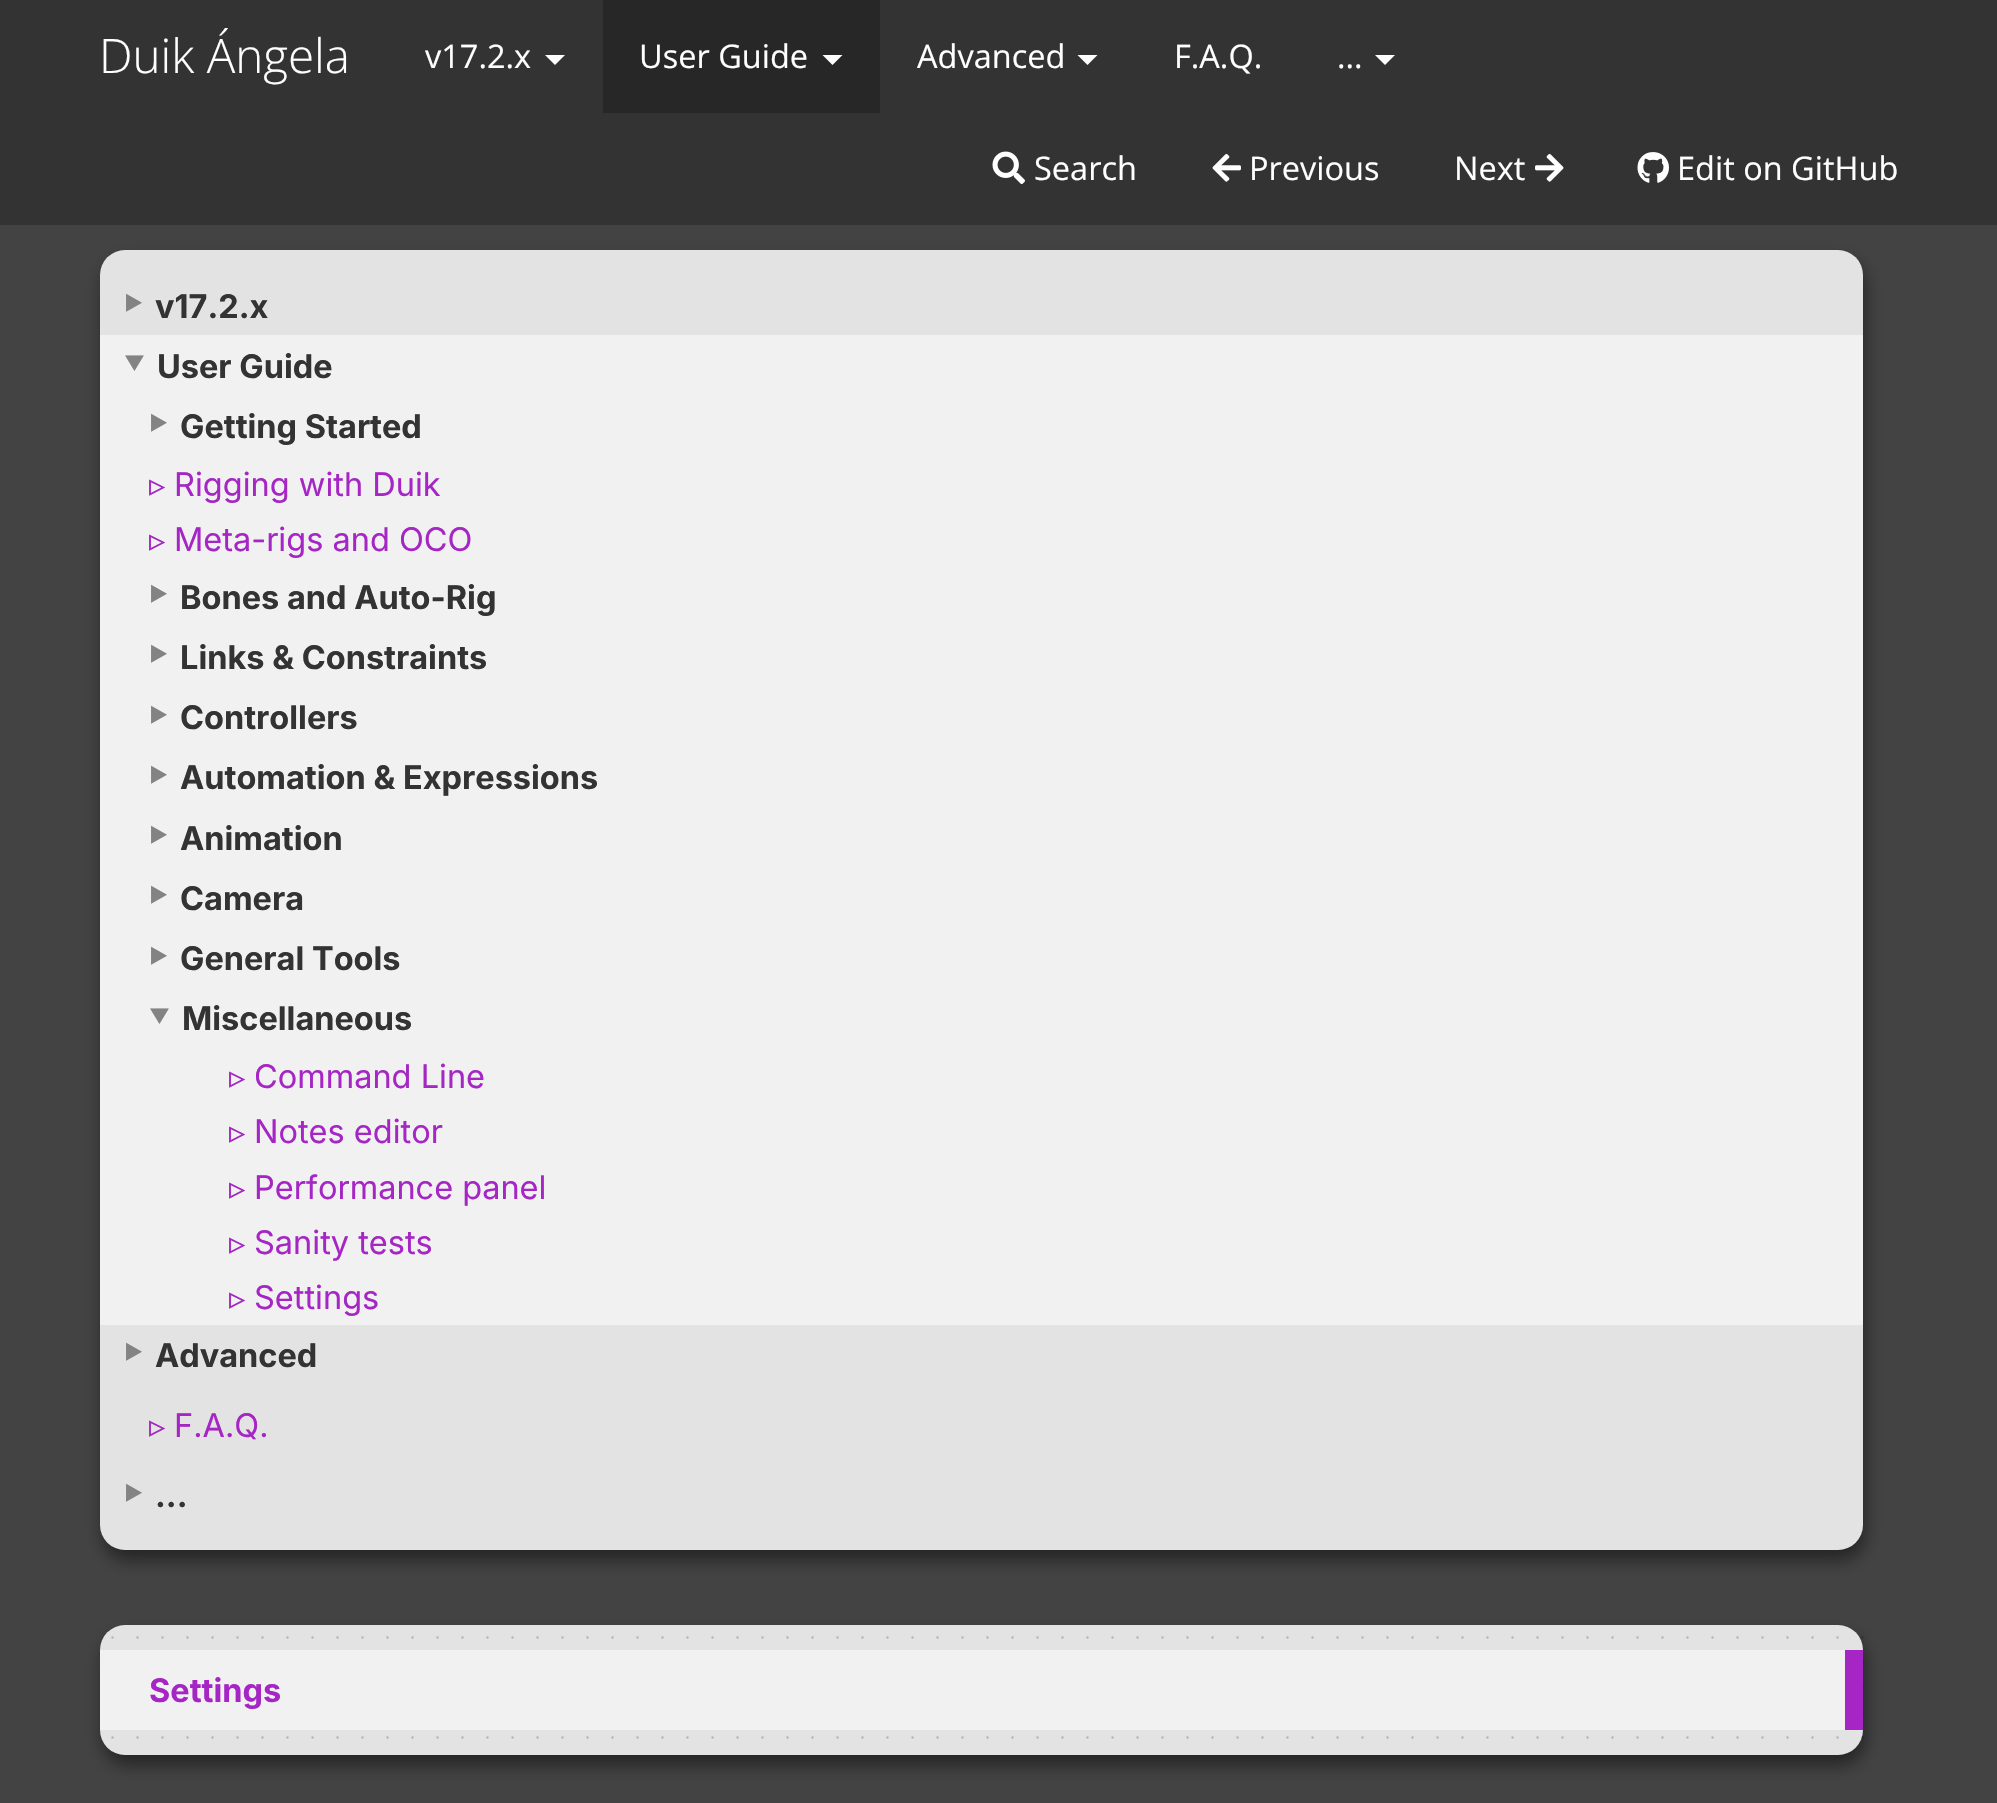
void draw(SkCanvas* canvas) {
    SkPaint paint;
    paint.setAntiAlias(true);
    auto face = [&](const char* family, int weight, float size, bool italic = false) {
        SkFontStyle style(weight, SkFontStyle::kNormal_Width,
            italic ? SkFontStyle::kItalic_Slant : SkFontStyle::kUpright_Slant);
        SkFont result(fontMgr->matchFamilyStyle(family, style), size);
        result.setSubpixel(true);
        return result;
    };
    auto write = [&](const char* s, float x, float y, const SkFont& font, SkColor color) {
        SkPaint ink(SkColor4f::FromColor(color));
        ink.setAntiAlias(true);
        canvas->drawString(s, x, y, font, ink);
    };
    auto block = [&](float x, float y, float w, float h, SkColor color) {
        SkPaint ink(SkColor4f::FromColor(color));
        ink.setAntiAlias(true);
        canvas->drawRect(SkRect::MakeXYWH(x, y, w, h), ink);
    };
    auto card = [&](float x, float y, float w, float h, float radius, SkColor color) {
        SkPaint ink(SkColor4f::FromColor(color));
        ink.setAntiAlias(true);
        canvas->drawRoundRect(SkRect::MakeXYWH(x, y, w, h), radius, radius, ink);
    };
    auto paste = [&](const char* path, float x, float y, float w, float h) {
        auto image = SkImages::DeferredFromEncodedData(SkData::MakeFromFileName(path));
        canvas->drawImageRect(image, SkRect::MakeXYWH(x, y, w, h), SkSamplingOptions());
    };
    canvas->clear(SkColorSetRGB(67, 67, 67));
    block(0, 0, 1997, 225, SkColorSetRGB(51, 51, 51));
    auto kFont1 = face("Open Sans", 300, 47.5f);
    write("Duik Ángela", 99, 73, kFont1, SK_ColorWHITE);
    auto kFont2 = face("Open Sans", 400, 32.5f);
    write("v17.2.x", 425, 68, kFont2, SK_ColorWHITE);
    paint.setColor(SK_ColorWHITE);
    canvas->drawPath(SkPathBuilder().moveTo(545, 55).lineTo(565, 55).lineTo(555, 65).close().detach(), paint);
    block(603, 0, 277, 113, SkColorSetRGB(39, 39, 39));
    write("User Guide", 639, 68, kFont2, SK_ColorWHITE);
    canvas->drawPath(SkPathBuilder().moveTo(822.5f, 55).lineTo(842.5f, 55).lineTo(832.5f, 65).close().detach(), paint);
    write("Advanced", 917, 68, kFont2, SK_ColorWHITE);
    canvas->drawPath(SkPathBuilder().moveTo(1077.5f, 55).lineTo(1097.5f, 55).lineTo(1087.5f, 65).close().detach(), paint);
    write("F.A.Q.", 1174, 68, kFont2, SK_ColorWHITE);
    canvas->drawPath(SkPathBuilder().moveTo(1375, 55).lineTo(1395, 55).lineTo(1385, 65).close().detach(), paint);
    write("...", 1337, 68, kFont2, SK_ColorWHITE);
    paste("pic1.png", 992, 151, 33, 33);
    write("Search", 1034, 180, kFont2, SK_ColorWHITE);
    paste("pic2.png", 1212, 154, 29, 28);
    write("Previous", 1249, 180, kFont2, SK_ColorWHITE);
    write("Next", 1454, 180, kFont2, SK_ColorWHITE);
    paste("pic3.png", 1535, 154, 29, 28);
    paste("pic4.png", 1637, 152, 32, 31);
    write("Edit on GitHub", 1677, 180, kFont2, SK_ColorWHITE);
    paint.setColor(SkColorSetRGB(35, 35, 35));
    paint.setMaskFilter(SkMaskFilter::MakeBlur(kNormal_SkBlurStyle, 9));
    canvas->drawRoundRect(SkRect::MakeXYWH(103, 260, 1762, 1300), 25, 25, paint);
    paint.setMaskFilter(nullptr);
    card(100, 250, 1763, 1300, 25, SkColorSetRGB(227, 227, 227));
    auto kFont3 = face("Inter", 700, 20);
    write("▶", 124, 310, kFont3, SkColorSetRGB(131, 131, 131));
    auto kFont4 = face("Inter", 700, 32.5f);
    write("v17.2.x", 155, 318, kFont4, SkColorSetRGB(51, 51, 51));
    block(100, 335, 1763, 990, SkColorSetRGB(241, 241, 241));
    write("▼", 124, 370, kFont3, SkColorSetRGB(131, 131, 131));
    write("User Guide", 157, 378, kFont4, SkColorSetRGB(51, 51, 51));
    write("▶", 149, 430, kFont3, SkColorSetRGB(131, 131, 131));
    write("Getting Started", 180, 438, kFont4, SkColorSetRGB(51, 51, 51));
    auto kFont5 = face("DejaVu Sans", 400, 32.5f);
    write("▹", 149, 496, kFont5, SkColorSetRGB(165, 38, 196));
    auto kFont6 = face("Inter", 400, 32.5f);
    write("Rigging with Duik", 174, 496, kFont6, SkColorSetRGB(165, 38, 196));
    write("▹", 149, 551, kFont5, SkColorSetRGB(165, 38, 196));
    write("Meta-rigs and OCO", 174, 551, kFont6, SkColorSetRGB(165, 38, 196));
    write("▶", 149, 601, kFont3, SkColorSetRGB(131, 131, 131));
    write("Bones and Auto-Rig", 180, 609, kFont4, SkColorSetRGB(51, 51, 51));
    write("▶", 149, 661, kFont3, SkColorSetRGB(131, 131, 131));
    write("Links & Constraints", 180, 669, kFont4, SkColorSetRGB(51, 51, 51));
    write("▶", 149, 722, kFont3, SkColorSetRGB(131, 131, 131));
    write("Controllers", 180, 729, kFont4, SkColorSetRGB(51, 51, 51));
    write("▶", 149, 782, kFont3, SkColorSetRGB(131, 131, 131));
    write("Automation & Expressions", 180, 789, kFont4, SkColorSetRGB(51, 51, 51));
    write("▶", 149, 842, kFont3, SkColorSetRGB(131, 131, 131));
    write("Animation", 180, 850, kFont4, SkColorSetRGB(51, 51, 51));
    write("▶", 149, 902, kFont3, SkColorSetRGB(131, 131, 131));
    write("Camera", 180, 910, kFont4, SkColorSetRGB(51, 51, 51));
    write("▶", 149, 963, kFont3, SkColorSetRGB(131, 131, 131));
    write("General Tools", 180, 970, kFont4, SkColorSetRGB(51, 51, 51));
    write("▼", 149, 1023, kFont3, SkColorSetRGB(131, 131, 131));
    write("Miscellaneous", 182, 1030, kFont4, SkColorSetRGB(51, 51, 51));
    write("▹", 229, 1088, kFont5, SkColorSetRGB(165, 38, 196));
    write("Command Line", 254, 1088, kFont6, SkColorSetRGB(165, 38, 196));
    write("▹", 229, 1143, kFont5, SkColorSetRGB(165, 38, 196));
    write("Notes editor", 254, 1143, kFont6, SkColorSetRGB(165, 38, 196));
    write("▹", 229, 1199, kFont5, SkColorSetRGB(165, 38, 196));
    write("Performance panel", 254, 1199, kFont6, SkColorSetRGB(165, 38, 196));
    write("▹", 229, 1254, kFont5, SkColorSetRGB(165, 38, 196));
    write("Sanity tests", 254, 1254, kFont6, SkColorSetRGB(165, 38, 196));
    write("▹", 229, 1309, kFont5, SkColorSetRGB(165, 38, 196));
    write("Settings", 254, 1309, kFont6, SkColorSetRGB(165, 38, 196));
    write("▶", 124, 1359, kFont3, SkColorSetRGB(131, 131, 131));
    write("Advanced", 155, 1367, kFont4, SkColorSetRGB(51, 51, 51));
    write("▹", 149, 1437, kFont5, SkColorSetRGB(165, 38, 196));
    write("F.A.Q.", 174, 1437, kFont6, SkColorSetRGB(165, 38, 196));
    write("▶", 124, 1500, kFont3, SkColorSetRGB(131, 131, 131));
    write("...", 155, 1507, kFont4, SkColorSetRGB(51, 51, 51));
    paint.setMaskFilter(SkMaskFilter::MakeBlur(kNormal_SkBlurStyle, 9));
    canvas->drawRoundRect(SkRect::MakeXYWH(103, 1635, 1762, 130), 25, 25, paint);
    paint.setMaskFilter(nullptr);
    card(100, 1625, 1763, 130, 25, SkColorSetRGB(227, 227, 227));
    paint.setStyle(SkPaint::kStroke_Style);
    paint.setStrokeWidth(2.5f);
    paint.setStrokeCap(SkPaint::kRound_Cap);
    paint.setColor(SkColorSetARGB(51, 0, 0, 0));
    paint.setPathEffect(SkDashPathEffect::Make({{0, 25}}, 0));
    canvas->drawPath(SkPathBuilder().moveTo(112.5f, 1637.5f).lineTo(1863, 1637.5f).detach(), paint);
    paint.setPathEffect(nullptr);
    paint.setPathEffect(SkDashPathEffect::Make({{0, 25}}, 0));
    canvas->drawPath(SkPathBuilder().moveTo(112.5f, 1662.5f).lineTo(1863, 1662.5f).detach(), paint);
    paint.setPathEffect(nullptr);
    paint.setPathEffect(SkDashPathEffect::Make({{0, 25}}, 0));
    canvas->drawPath(SkPathBuilder().moveTo(112.5f, 1687.5f).lineTo(1863, 1687.5f).detach(), paint);
    paint.setPathEffect(nullptr);
    paint.setPathEffect(SkDashPathEffect::Make({{0, 25}}, 0));
    canvas->drawPath(SkPathBuilder().moveTo(112.5f, 1712.5f).lineTo(1863, 1712.5f).detach(), paint);
    paint.setPathEffect(nullptr);
    paint.setPathEffect(SkDashPathEffect::Make({{0, 25}}, 0));
    canvas->drawPath(SkPathBuilder().moveTo(112.5f, 1737.5f).lineTo(1863, 1737.5f).detach(), paint);
    paint.setPathEffect(nullptr);
    block(100, 1650, 1745, 80, SkColorSetRGB(241, 241, 241));
    block(1845, 1650, 18, 80, SkColorSetRGB(165, 38, 196));
    write("Settings", 149, 1702, kFont4, SkColorSetRGB(165, 38, 196));
}
